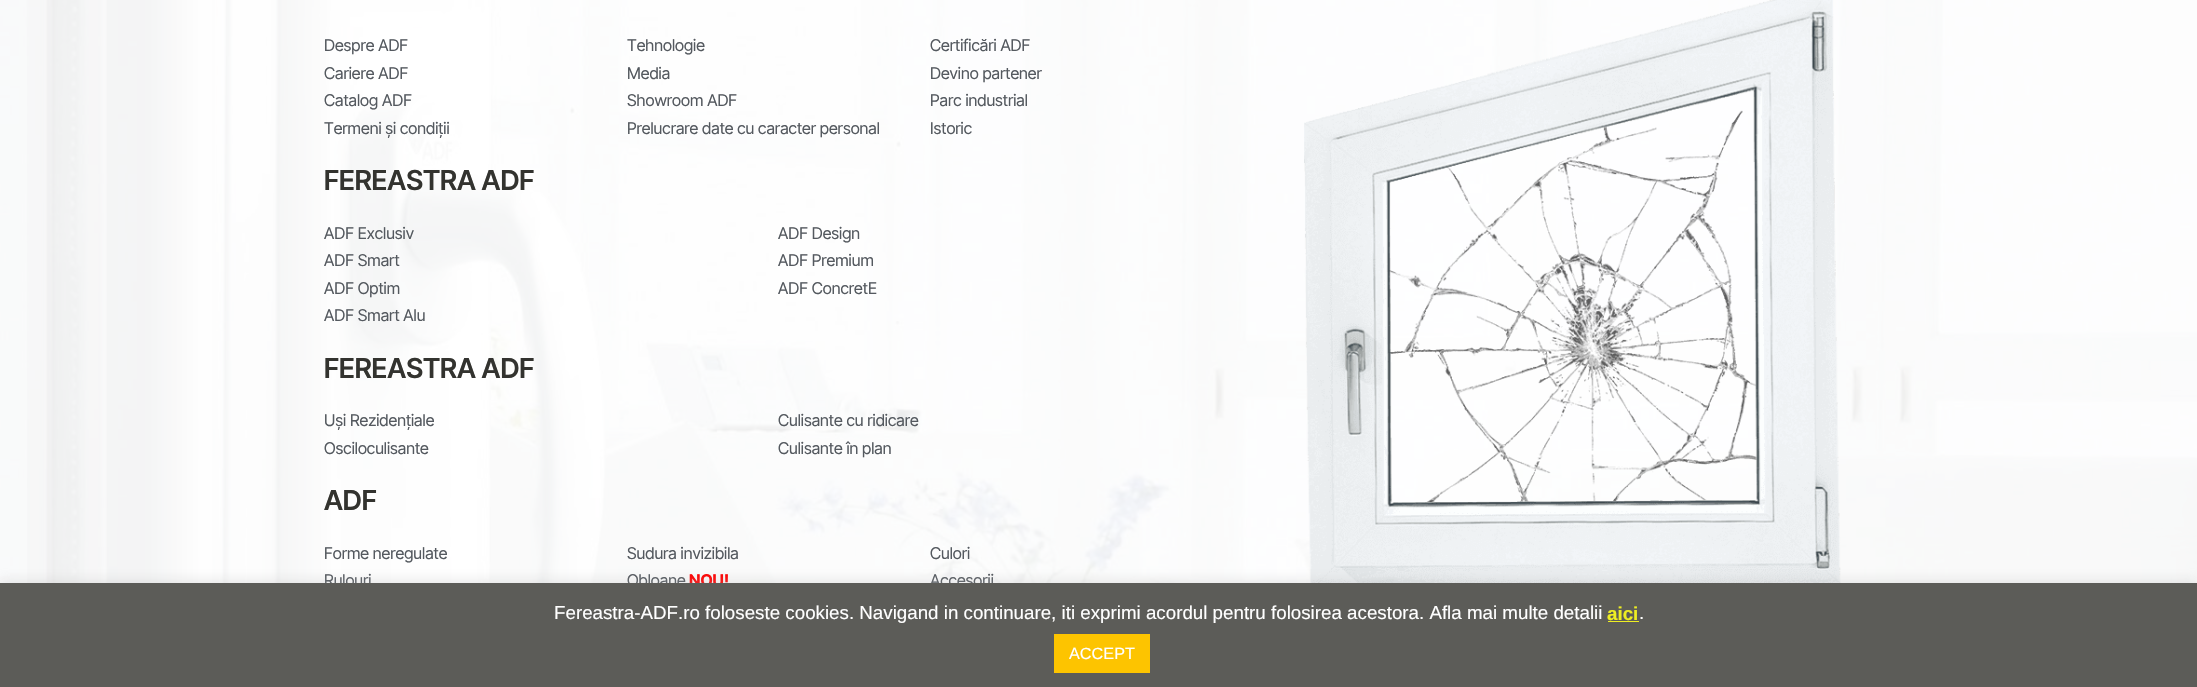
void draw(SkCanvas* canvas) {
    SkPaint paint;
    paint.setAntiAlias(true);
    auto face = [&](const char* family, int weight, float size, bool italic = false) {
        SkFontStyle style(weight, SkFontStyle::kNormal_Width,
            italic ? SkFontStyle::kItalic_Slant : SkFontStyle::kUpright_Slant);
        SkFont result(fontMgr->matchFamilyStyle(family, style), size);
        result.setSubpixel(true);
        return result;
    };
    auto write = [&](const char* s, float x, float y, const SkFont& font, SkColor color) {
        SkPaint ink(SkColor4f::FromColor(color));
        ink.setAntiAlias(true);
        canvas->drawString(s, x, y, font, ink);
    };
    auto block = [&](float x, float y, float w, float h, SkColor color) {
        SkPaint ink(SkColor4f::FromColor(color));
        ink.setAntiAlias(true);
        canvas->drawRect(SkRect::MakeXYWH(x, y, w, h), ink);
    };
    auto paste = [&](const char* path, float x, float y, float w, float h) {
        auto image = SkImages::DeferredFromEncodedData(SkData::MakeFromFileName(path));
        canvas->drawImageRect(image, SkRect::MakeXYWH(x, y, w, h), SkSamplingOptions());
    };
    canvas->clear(SK_ColorWHITE);
    paste("pic1.png", 0, 0, 2197, 583);
    auto kFont1 = face("Inter Tight", 400, 16.25f);
    write("Despre ADF", 324, 51, kFont1, SkColorSetRGB(84, 89, 95));
    write("Cariere ADF", 324, 79, kFont1, SkColorSetRGB(84, 89, 95));
    write("Catalog ADF", 324, 106, kFont1, SkColorSetRGB(84, 89, 95));
    write("Termeni și condiții", 324, 134, kFont1, SkColorSetRGB(84, 89, 95));
    write("Tehnologie", 627, 51, kFont1, SkColorSetRGB(84, 89, 95));
    write("Media", 627, 79, kFont1, SkColorSetRGB(84, 89, 95));
    write("Showroom ADF", 627, 106, kFont1, SkColorSetRGB(84, 89, 95));
    write("Prelucrare date cu caracter personal", 627, 134, kFont1, SkColorSetRGB(84, 89, 95));
    write("Certificări ADF", 930, 51, kFont1, SkColorSetRGB(84, 89, 95));
    write("Devino partener", 930, 79, kFont1, SkColorSetRGB(84, 89, 95));
    write("Parc industrial", 930, 106, kFont1, SkColorSetRGB(84, 89, 95));
    write("Istoric", 930, 134, kFont1, SkColorSetRGB(84, 89, 95));
    auto kFont2 = face("Inter Tight", 600, 27.5f);
    write("FEREASTRA ADF", 324, 190, kFont2, SkColorSetRGB(51, 51, 47));
    write("ADF Exclusiv", 324, 239, kFont1, SkColorSetRGB(84, 89, 95));
    write("ADF Smart", 324, 266, kFont1, SkColorSetRGB(84, 89, 95));
    write("ADF Optim", 324, 294, kFont1, SkColorSetRGB(84, 89, 95));
    write("ADF Smart Alu", 324, 321, kFont1, SkColorSetRGB(84, 89, 95));
    write("ADF Design", 778, 239, kFont1, SkColorSetRGB(84, 89, 95));
    write("ADF Premium", 778, 266, kFont1, SkColorSetRGB(84, 89, 95));
    write("ADF ConcretE", 778, 294, kFont1, SkColorSetRGB(84, 89, 95));
    write("FEREASTRA ADF", 324, 378, kFont2, SkColorSetRGB(51, 51, 47));
    write("Uși Rezidențiale", 324, 426, kFont1, SkColorSetRGB(84, 89, 95));
    write("Osciloculisante", 324, 454, kFont1, SkColorSetRGB(84, 89, 95));
    write("Culisante cu ridicare", 778, 426, kFont1, SkColorSetRGB(84, 89, 95));
    write("Culisante în plan", 778, 454, kFont1, SkColorSetRGB(84, 89, 95));
    write("ADF", 324, 510, kFont2, SkColorSetRGB(51, 51, 47));
    write("Forme neregulate", 324, 559, kFont1, SkColorSetRGB(84, 89, 95));
    write("Rulouri", 324, 586, kFont1, SkColorSetRGB(84, 89, 95));
    write("Sudura invizibila", 627, 559, kFont1, SkColorSetRGB(84, 89, 95));
    write("Obloane", 627, 586, kFont1, SkColorSetRGB(84, 89, 95));
    auto kFont3 = face("Inter Tight", 700, 16.25f);
    write("NOU!", 689, 586, kFont3, SkColorSetRGB(255, 0, 0));
    write("Culori", 930, 559, kFont1, SkColorSetRGB(84, 89, 95));
    write("Accesorii", 930, 586, kFont1, SkColorSetRGB(84, 89, 95));
    paste("pic2.png", 1304, 0, 537, 583);
    paint.setColor(SkColorSetARGB(77, 172, 171, 171));
    paint.setMaskFilter(SkMaskFilter::MakeBlur(kNormal_SkBlurStyle, 6));
    canvas->drawRect(SkRect::MakeXYWH(0, 581, 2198, 105), paint);
    paint.setMaskFilter(nullptr);
    block(0, 583, 2197, 104, SkColorSetRGB(92, 92, 88));
    auto kFont4 = face("Liberation Sans", 400, 18.75f);
    write("Fereastra-ADF.ro foloseste cookies. Navigand in continuare, iti exprimi acordul pentru folosirea acestora. Afla mai multe detalii", 554, 619, kFont4, SK_ColorWHITE);
    auto kFont5 = face("Liberation Sans", 700, 18.75f);
    write("aici", 1607, 620, kFont5, SkColorSetRGB(238, 238, 34));
    block(1608, 621, 31, 1, SkColorSetRGB(238, 238, 34));
    write(".", 1639, 619, kFont4, SK_ColorWHITE);
    block(1054, 634, 96, 39, SkColorSetRGB(253, 196, 0));
    auto kFont6 = face("Liberation Sans", 400, 16.25f);
    write("ACCEPT", 1069, 659, kFont6, SK_ColorWHITE);
}
